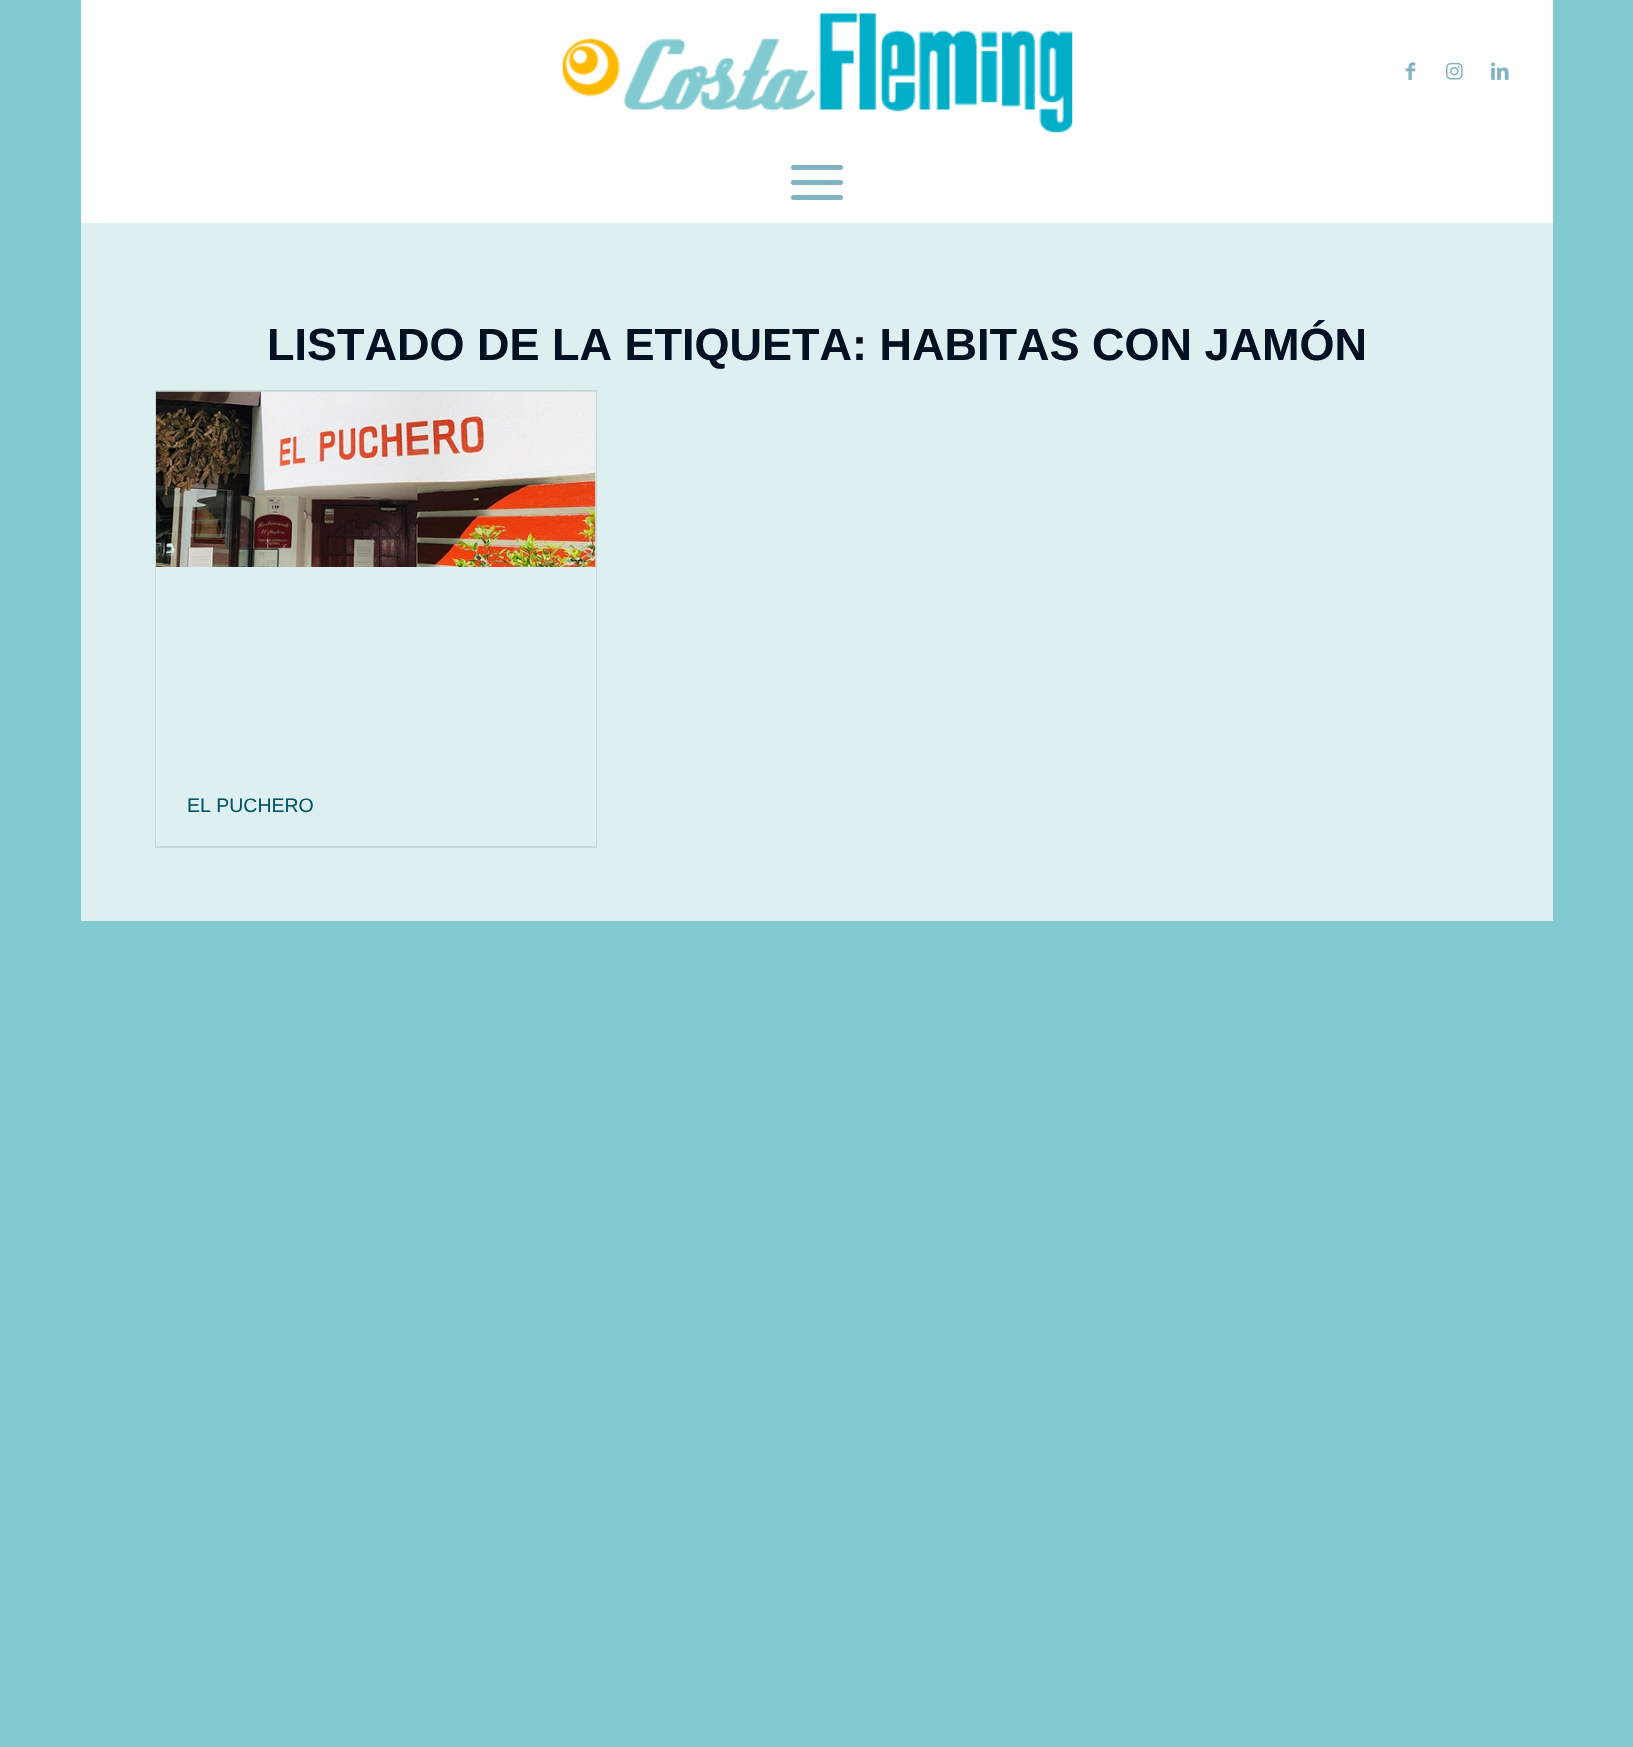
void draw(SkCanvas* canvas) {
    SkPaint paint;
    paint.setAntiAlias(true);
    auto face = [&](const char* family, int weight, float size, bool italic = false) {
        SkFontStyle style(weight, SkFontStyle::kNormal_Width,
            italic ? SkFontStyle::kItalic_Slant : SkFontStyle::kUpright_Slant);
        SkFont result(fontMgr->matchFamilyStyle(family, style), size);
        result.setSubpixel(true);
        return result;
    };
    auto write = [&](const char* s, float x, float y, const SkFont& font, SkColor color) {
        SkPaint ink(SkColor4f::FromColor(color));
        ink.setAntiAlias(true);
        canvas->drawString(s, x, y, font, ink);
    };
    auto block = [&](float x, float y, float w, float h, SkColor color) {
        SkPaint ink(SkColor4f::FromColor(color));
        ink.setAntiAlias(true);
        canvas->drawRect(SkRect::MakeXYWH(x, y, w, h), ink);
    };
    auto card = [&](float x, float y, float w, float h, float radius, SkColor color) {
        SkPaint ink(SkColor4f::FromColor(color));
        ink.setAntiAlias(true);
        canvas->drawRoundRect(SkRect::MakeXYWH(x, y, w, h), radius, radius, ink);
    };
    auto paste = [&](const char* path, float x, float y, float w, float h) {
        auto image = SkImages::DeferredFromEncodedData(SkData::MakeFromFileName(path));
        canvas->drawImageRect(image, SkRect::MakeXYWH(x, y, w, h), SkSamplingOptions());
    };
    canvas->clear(SkColorSetRGB(129, 203, 208));
    block(81, 0, 1472, 223, SK_ColorWHITE);
    paste("pic1.png", 562, 13, 511, 120);
    paste("pic2.png", 1405, 62, 11, 18);
    paste("pic3.png", 1446, 62, 17, 18);
    paste("pic4.png", 1491, 62, 18, 18);
    card(791, 180, 52, 5, 2.5f, SkColorSetRGB(128, 180, 194));
    card(791, 165, 52, 5, 2.5f, SkColorSetRGB(128, 180, 194));
    card(791, 195, 52, 5, 2.5f, SkColorSetRGB(128, 180, 194));
    block(81, 223, 1472, 698, SkColorSetRGB(221, 239, 240));
    auto kFont1 = face("Liberation Sans", 700, 45);
    write("LISTADO DE LA ETIQUETA: HABITAS CON JAMÓN", 267, 360, kFont1, SkColorSetRGB(0, 17, 34));
    paint.setStyle(SkPaint::kStroke_Style);
    paint.setStrokeWidth(2);
    paint.setColor(SkColorSetRGB(199, 215, 216));
    canvas->drawRect(SkRect::MakeXYWH(156, 391, 440, 456), paint);
    block(156, 392, 440, 454, SkColorSetRGB(221, 239, 240));
    paste("pic5.png", 156, 391, 440, 176);
    auto kFont2 = face("Liberation Sans", 400, 19.5f);
    write("EL PUCHERO", 187, 812, kFont2, SkColorSetRGB(2, 85, 102));
}
